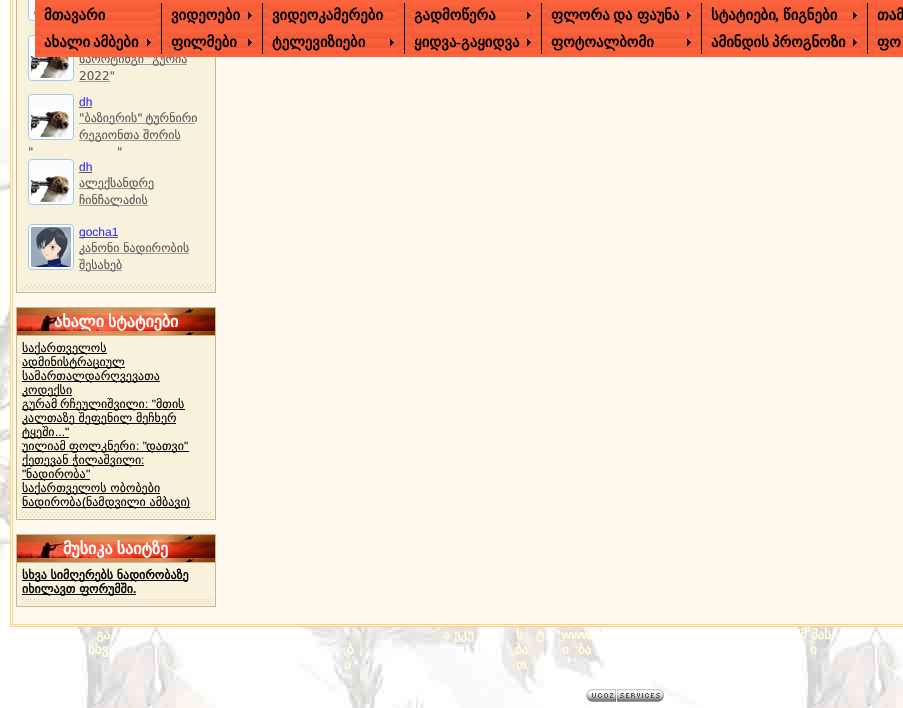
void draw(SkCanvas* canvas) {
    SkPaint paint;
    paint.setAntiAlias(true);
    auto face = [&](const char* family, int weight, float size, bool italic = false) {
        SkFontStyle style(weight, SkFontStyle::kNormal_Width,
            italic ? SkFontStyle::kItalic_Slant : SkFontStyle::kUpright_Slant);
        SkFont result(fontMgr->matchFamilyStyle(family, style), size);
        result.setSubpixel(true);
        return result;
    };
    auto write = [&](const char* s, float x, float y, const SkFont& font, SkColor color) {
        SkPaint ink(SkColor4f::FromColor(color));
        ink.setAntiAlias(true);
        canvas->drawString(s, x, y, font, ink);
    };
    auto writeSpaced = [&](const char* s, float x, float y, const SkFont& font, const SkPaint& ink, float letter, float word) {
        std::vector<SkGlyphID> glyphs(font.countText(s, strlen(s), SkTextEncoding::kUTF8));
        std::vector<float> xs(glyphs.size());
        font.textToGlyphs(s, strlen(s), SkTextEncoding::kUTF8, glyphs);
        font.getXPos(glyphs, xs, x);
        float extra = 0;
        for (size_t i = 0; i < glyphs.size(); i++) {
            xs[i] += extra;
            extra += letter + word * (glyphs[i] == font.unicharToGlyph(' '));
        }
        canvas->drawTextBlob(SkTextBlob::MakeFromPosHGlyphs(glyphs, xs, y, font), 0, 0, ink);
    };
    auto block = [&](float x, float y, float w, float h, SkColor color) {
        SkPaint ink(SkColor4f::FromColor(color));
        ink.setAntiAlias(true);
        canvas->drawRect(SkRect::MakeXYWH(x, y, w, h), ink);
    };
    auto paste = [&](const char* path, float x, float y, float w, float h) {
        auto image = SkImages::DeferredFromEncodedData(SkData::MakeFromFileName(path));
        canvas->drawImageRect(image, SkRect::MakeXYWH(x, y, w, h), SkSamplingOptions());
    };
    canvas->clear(SK_ColorWHITE);
    paste("pic1.png", 0, 0, 903, 708);
    paint.setColor(SkColorSetRGB(255, 249, 239));
    canvas->drawRect(SkRect::MakeXYWH(10.5f, -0.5f, 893, 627), paint);
    paint.setStyle(SkPaint::kStroke_Style);
    paint.setStrokeWidth(1);
    paint.setColor(SkColorSetRGB(255, 209, 123));
    canvas->drawRect(SkRect::MakeXYWH(10.5f, -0.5f, 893, 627), paint);
    canvas->drawRect(SkRect::MakeXYWH(12.5f, -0.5f, 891, 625), paint);
    block(16, 0, 200, 293, SkColorSetRGB(203, 181, 146));
    block(17, 0, 198, 292, SkColorSetRGB(248, 241, 220));
    paint.setStyle(SkPaint::kFill_Style);
    paint.setColor(SkColorSetRGB(252, 252, 255));
    canvas->drawRoundRect(SkRect::MakeXYWH(28.5f, -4.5f, 50, 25), 3.5f, 3.5f, paint);
    paint.setStyle(SkPaint::kStroke_Style);
    paint.setColor(SkColorSetRGB(165, 202, 228));
    canvas->drawRoundRect(SkRect::MakeXYWH(28.5f, -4.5f, 50, 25), 3.5f, 3.5f, paint);
    paint.setStyle(SkPaint::kFill_Style);
    paint.setColor(SkColorSetRGB(252, 252, 255));
    canvas->drawRoundRect(SkRect::MakeXYWH(28.5f, 35.5f, 45, 45), 3.5f, 3.5f, paint);
    paint.setStyle(SkPaint::kStroke_Style);
    paint.setColor(SkColorSetRGB(165, 202, 228));
    canvas->drawRoundRect(SkRect::MakeXYWH(28.5f, 35.5f, 45, 45), 3.5f, 3.5f, paint);
    paste("pic13.png", 31, 51, 39, 27);
    block(79, 64, 108, 1, SkColorSetRGB(156, 156, 156));
    auto kFont1 = face("DejaVu Sans", 400, 12);
    paint.setStyle(SkPaint::kFill_Style);
    paint.setColor(SkColorSetRGB(96, 89, 91));
    writeSpaced("სპორტინგი \"გურია", 79, 63, kFont1, paint, 0, -1);
    paste("pic2.png", 35, 0, 868, 57);
    block(38, 18, 3, 1, SkColorSetRGB(243, 91, 54));
    paste("pic3.png", 41, 3, 114, 24);
    auto kFont2 = face("DejaVu Sans", 700, 14.75f);
    write("მთავარი", 44, 20, kFont2, SK_ColorBLACK);
    block(155, 18, 3, 1, SkColorSetRGB(243, 91, 54));
    block(161, 3, 1, 51, SK_ColorBLACK);
    block(165, 18, 3, 1, SkColorSetRGB(243, 91, 54));
    paste("pic4.png", 168, 3, 88, 24);
    write("ვიდეოები", 171, 20, kFont2, SK_ColorBLACK);
    paste("pic5.png", 248, 12, 4, 7);
    block(256, 18, 3, 1, SkColorSetRGB(243, 91, 54));
    block(262, 3, 1, 51, SK_ColorBLACK);
    block(266, 18, 3, 1, SkColorSetRGB(243, 91, 54));
    paste("pic6.png", 269, 3, 129, 24);
    write("ვიდეოკამერები", 272, 20, kFont2, SK_ColorBLACK);
    block(398, 18, 3, 1, SkColorSetRGB(243, 91, 54));
    block(404, 3, 1, 51, SK_ColorBLACK);
    block(408, 18, 3, 1, SkColorSetRGB(243, 91, 54));
    paste("pic7.png", 411, 3, 124, 24);
    write("გადმოწერა", 414, 20, kFont2, SK_ColorBLACK);
    paste("pic5.png", 527, 12, 4, 7);
    block(535, 18, 3, 1, SkColorSetRGB(243, 91, 54));
    block(541, 3, 1, 51, SK_ColorBLACK);
    block(545, 18, 3, 1, SkColorSetRGB(243, 91, 54));
    paste("pic8.png", 548, 3, 147, 24);
    write("ფლორა", 551, 20, kFont2, SK_ColorBLACK);
    write("და", 613, 20, kFont2, SK_ColorBLACK);
    write("ფაუნა", 637, 20, kFont2, SK_ColorBLACK);
    paste("pic5.png", 687, 12, 4, 7);
    block(695, 18, 3, 1, SkColorSetRGB(243, 91, 54));
    block(701, 3, 1, 51, SK_ColorBLACK);
    block(705, 18, 3, 1, SkColorSetRGB(243, 91, 54));
    paste("pic9.png", 708, 3, 153, 24);
    write("სტატიები", 711, 20, kFont2, SK_ColorBLACK);
    auto kFont3 = face("Liberation Serif", 700, 14.75f);
    write(",", 775, 20, kFont3, SK_ColorBLACK);
    write("წიგნები", 783, 20, kFont2, SK_ColorBLACK);
    paste("pic5.png", 853, 12, 4, 7);
    block(861, 18, 3, 1, SkColorSetRGB(243, 91, 54));
    block(867, 3, 1, 51, SK_ColorBLACK);
    block(871, 18, 3, 1, SkColorSetRGB(243, 91, 54));
    paste("pic10.png", 874, 3, 29, 24);
    write("თამ", 877, 20, kFont2, SK_ColorBLACK);
    block(38, 45, 3, 1, SkColorSetRGB(243, 91, 54));
    paste("pic3.png", 41, 30, 114, 24);
    write("ახალი", 44, 47, kFont2, SK_ColorBLACK);
    write("ამბები", 93, 47, kFont2, SK_ColorBLACK);
    paste("pic5.png", 147, 39, 4, 7);
    block(155, 45, 3, 1, SkColorSetRGB(243, 91, 54));
    block(165, 45, 3, 1, SkColorSetRGB(243, 91, 54));
    paste("pic4.png", 168, 30, 88, 24);
    write("ფილმები", 171, 47, kFont2, SK_ColorBLACK);
    paste("pic5.png", 248, 39, 4, 7);
    block(256, 45, 3, 1, SkColorSetRGB(243, 91, 54));
    block(266, 45, 3, 1, SkColorSetRGB(243, 91, 54));
    paste("pic6.png", 269, 30, 129, 24);
    write("ტელევიზიები", 272, 47, kFont2, SK_ColorBLACK);
    paste("pic5.png", 390, 39, 4, 7);
    block(398, 45, 3, 1, SkColorSetRGB(243, 91, 54));
    block(408, 45, 3, 1, SkColorSetRGB(243, 91, 54));
    paste("pic7.png", 411, 30, 124, 24);
    write("ყიდვა გაყიდვა", 414, 47, kFont2, SK_ColorBLACK);
    write("-", 456, 47, kFont3, SK_ColorBLACK);
    paste("pic5.png", 527, 39, 4, 7);
    block(535, 45, 3, 1, SkColorSetRGB(243, 91, 54));
    block(545, 45, 3, 1, SkColorSetRGB(243, 91, 54));
    paste("pic8.png", 548, 30, 147, 24);
    write("ფოტოალბომი", 551, 47, kFont2, SK_ColorBLACK);
    paste("pic5.png", 687, 39, 4, 7);
    block(695, 45, 3, 1, SkColorSetRGB(243, 91, 54));
    block(705, 45, 3, 1, SkColorSetRGB(243, 91, 54));
    paste("pic9.png", 708, 30, 153, 24);
    write("ამინდის", 711, 47, kFont2, SK_ColorBLACK);
    write("პროგნოზი", 772, 47, kFont2, SK_ColorBLACK);
    paste("pic5.png", 853, 39, 4, 7);
    block(861, 45, 3, 1, SkColorSetRGB(243, 91, 54));
    block(871, 45, 3, 1, SkColorSetRGB(243, 91, 54));
    paste("pic10.png", 874, 30, 29, 24);
    write("ფო", 877, 47, kFont2, SK_ColorBLACK);
    paste("pic11.png", 22, 285, 189, 5);
    paste("pic12.png", 33, 0, 2, 17);
    write("2022\"", 79, 80, kFont1, SkColorSetRGB(96, 89, 91));
    block(79, 81, 31, 1, SkColorSetRGB(156, 156, 156));
    paint.setColor(SkColorSetRGB(252, 252, 255));
    canvas->drawRoundRect(SkRect::MakeXYWH(28.5f, 94.5f, 45, 45), 3.5f, 3.5f, paint);
    paint.setStyle(SkPaint::kStroke_Style);
    paint.setColor(SkColorSetRGB(165, 202, 228));
    canvas->drawRoundRect(SkRect::MakeXYWH(28.5f, 94.5f, 45, 45), 3.5f, 3.5f, paint);
    paste("pic13.png", 31, 110, 39, 27);
    auto kFont4 = face("Liberation Sans", 400, 12);
    write("dh", 79, 106, kFont4, SkColorSetRGB(51, 51, 255));
    block(79, 107, 13, 1, SkColorSetRGB(96, 89, 91));
    block(79, 123, 116, 1, SkColorSetRGB(156, 156, 156));
    paint.setStyle(SkPaint::kFill_Style);
    paint.setColor(SkColorSetRGB(96, 89, 91));
    writeSpaced("\"ბაზიერის\" ტურნირი", 79, 122, kFont1, paint, 0, -1);
    block(79, 140, 101, 1, SkColorSetRGB(156, 156, 156));
    write("რეგიონთა შორის", 79, 139, kFont1, SkColorSetRGB(96, 89, 91));
    writeSpaced("\"", 28, 156, kFont1, paint, 0, -1);
    writeSpaced("\"", 117, 156, kFont1, paint, 0, -1);
    paint.setColor(SkColorSetRGB(252, 252, 255));
    canvas->drawRoundRect(SkRect::MakeXYWH(28.5f, 159.5f, 45, 45), 3.5f, 3.5f, paint);
    paint.setStyle(SkPaint::kStroke_Style);
    paint.setColor(SkColorSetRGB(165, 202, 228));
    canvas->drawRoundRect(SkRect::MakeXYWH(28.5f, 159.5f, 45, 45), 3.5f, 3.5f, paint);
    paste("pic13.png", 31, 175, 39, 27);
    write("dh", 79, 171, kFont4, SkColorSetRGB(51, 51, 255));
    block(79, 172, 13, 1, SkColorSetRGB(96, 89, 91));
    block(79, 188, 75, 1, SkColorSetRGB(156, 156, 156));
    write("ალექსანდრე", 79, 187, kFont1, SkColorSetRGB(96, 89, 91));
    block(79, 205, 69, 1, SkColorSetRGB(156, 156, 156));
    write("ჩინჩალაძის", 79, 204, kFont1, SkColorSetRGB(96, 89, 91));
    paint.setStyle(SkPaint::kFill_Style);
    paint.setColor(SkColorSetRGB(252, 252, 255));
    canvas->drawRoundRect(SkRect::MakeXYWH(28.5f, 224.5f, 45, 45), 3.5f, 3.5f, paint);
    paint.setStyle(SkPaint::kStroke_Style);
    paint.setColor(SkColorSetRGB(165, 202, 228));
    canvas->drawRoundRect(SkRect::MakeXYWH(28.5f, 224.5f, 45, 45), 3.5f, 3.5f, paint);
    paste("pic14.png", 31, 227, 40, 40);
    block(79, 237, 39, 1, SkColorSetRGB(96, 89, 91));
    write("gocha1", 79, 236, kFont4, SkColorSetRGB(51, 51, 255));
    block(79, 253, 110, 1, SkColorSetRGB(156, 156, 156));
    write("კანონი ნადირობის", 79, 252, kFont1, SkColorSetRGB(96, 89, 91));
    block(79, 270, 43, 1, SkColorSetRGB(156, 156, 156));
    write("შესახებ", 79, 269, kFont1, SkColorSetRGB(96, 89, 91));
    block(16, 307, 200, 213, SkColorSetRGB(203, 181, 146));
    paste("pic15.png", 17, 308, 198, 27);
    auto kFont5 = face("DejaVu Sans", 700, 16);
    paint.setStyle(SkPaint::kFill_Style);
    paint.setColor(SK_ColorWHITE);
    writeSpaced("ახალი სტატიები", 54, 327, kFont5, paint, 0, -1);
    block(17, 336, 198, 183, SkColorSetRGB(248, 241, 220));
    paste("pic11.png", 22, 512, 189, 5);
    block(22, 353, 85, 1, SkColorSetRGB(10, 10, 10));
    write("საქართველოს", 22, 352, kFont1, SkColorSetRGB(10, 10, 10));
    block(22, 367, 103, 1, SkColorSetRGB(10, 10, 10));
    write("ადმინისტრაციულ", 22, 366, kFont1, SkColorSetRGB(10, 10, 10));
    block(22, 381, 138, 1, SkColorSetRGB(10, 10, 10));
    write("სამართალდარღვევათა", 22, 380, kFont1, SkColorSetRGB(10, 10, 10));
    block(22, 395, 50, 1, SkColorSetRGB(10, 10, 10));
    write("კოდექსი", 22, 394, kFont1, SkColorSetRGB(10, 10, 10));
    block(22, 409, 163, 1, SkColorSetRGB(10, 10, 10));
    write("გურამ", 22, 408, kFont1, SkColorSetRGB(10, 10, 10));
    write("რჩეულიშვილი", 60, 408, kFont1, SkColorSetRGB(10, 10, 10));
    write(": \"", 145, 408, kFont4, SkColorSetRGB(10, 10, 10));
    write("მთის", 156, 408, kFont1, SkColorSetRGB(10, 10, 10));
    block(22, 423, 154, 1, SkColorSetRGB(10, 10, 10));
    write("კალთაზე შეფენილ მეჩხერ", 22, 422, kFont1, SkColorSetRGB(10, 10, 10));
    block(22, 437, 47, 1, SkColorSetRGB(10, 10, 10));
    write("ტყეში", 22, 436, kFont1, SkColorSetRGB(10, 10, 10));
    write("...\"", 55, 436, kFont4, SkColorSetRGB(10, 10, 10));
    block(22, 451, 167, 1, SkColorSetRGB(10, 10, 10));
    write("უილიამ", 22, 450, kFont1, SkColorSetRGB(10, 10, 10));
    write("ფოლკნერი", 69, 450, kFont1, SkColorSetRGB(10, 10, 10));
    write(": \"", 136, 450, kFont4, SkColorSetRGB(10, 10, 10));
    write("დათვი", 146, 450, kFont1, SkColorSetRGB(10, 10, 10));
    write("\"", 184, 450, kFont4, SkColorSetRGB(10, 10, 10));
    block(22, 465, 122, 1, SkColorSetRGB(10, 10, 10));
    write("ქეთევან ჭილაშვილი", 22, 464, kFont1, SkColorSetRGB(10, 10, 10));
    write(":", 141, 464, kFont4, SkColorSetRGB(10, 10, 10));
    write("\"", 22, 478, kFont4, SkColorSetRGB(10, 10, 10));
    block(22, 479, 68, 1, SkColorSetRGB(10, 10, 10));
    write("ნადირობა", 26, 478, kFont1, SkColorSetRGB(10, 10, 10));
    write("\"", 86, 478, kFont4, SkColorSetRGB(10, 10, 10));
    block(22, 493, 138, 1, SkColorSetRGB(10, 10, 10));
    write("საქართველოს ობობები", 22, 492, kFont1, SkColorSetRGB(10, 10, 10));
    block(22, 507, 168, 1, SkColorSetRGB(10, 10, 10));
    write("ნადირობა", 22, 506, kFont1, SkColorSetRGB(10, 10, 10));
    write("(", 82, 506, kFont4, SkColorSetRGB(10, 10, 10));
    write("ნამდვილი ამბავი", 86, 506, kFont1, SkColorSetRGB(10, 10, 10));
    write(")", 186, 506, kFont4, SkColorSetRGB(10, 10, 10));
    block(16, 534, 200, 73, SkColorSetRGB(203, 181, 146));
    paste("pic15.png", 17, 535, 198, 27);
    writeSpaced("მუსიკა საიტზე", 63, 554, kFont5, paint, 0, -1);
    block(17, 563, 198, 43, SkColorSetRGB(248, 241, 220));
    paste("pic11.png", 22, 599, 189, 5);
    block(22, 580, 166, 1, SkColorSetRGB(10, 10, 10));
    auto kFont6 = face("DejaVu Sans", 700, 12);
    write("სხვა სიმღერებს ნადირობაზე", 22, 579, kFont6, SkColorSetRGB(10, 10, 10));
    block(22, 594, 114, 1, SkColorSetRGB(10, 10, 10));
    write("იხილავთ ფორუმში", 22, 593, kFont6, SkColorSetRGB(10, 10, 10));
    auto kFont7 = face("Liberation Sans", 700, 12);
    write(".", 133, 593, kFont7, SkColorSetRGB(10, 10, 10));
    auto kFont8 = face("DejaVu Sans", 700, 13);
    write("გა", 96, 639, kFont8, SkColorSetRGB(255, 255, 224));
    write("ა ეკუ", 443, 639, kFont8, SkColorSetRGB(255, 255, 224));
    write("ს", 516, 639, kFont8, SkColorSetRGB(255, 255, 224));
    write("ტ", 536, 639, kFont8, SkColorSetRGB(255, 255, 224));
    auto kFont9 = face("Liberation Sans", 700, 13);
    write("\"www", 555, 639, kFont9, SkColorSetRGB(255, 255, 224));
    write("მ მას", 800, 639, kFont8, SkColorSetRGB(255, 255, 224));
    write("სხვ", 88, 654, kFont8, SkColorSetRGB(255, 255, 224));
    write("ბ", 347, 654, kFont8, SkColorSetRGB(255, 255, 224));
    write("ბა", 515, 654, kFont8, SkColorSetRGB(255, 255, 224));
    write("ი", 562, 654, kFont8, SkColorSetRGB(255, 255, 224));
    write("ბა", 578, 654, kFont8, SkColorSetRGB(255, 255, 224));
    write("ი", 810, 654, kFont8, SkColorSetRGB(255, 255, 224));
    write("ა", 344, 669, kFont8, SkColorSetRGB(255, 255, 224));
    write("თ", 516, 669, kFont8, SkColorSetRGB(255, 255, 224));
    paste("pic16.png", 586, 689, 78, 13);
}
